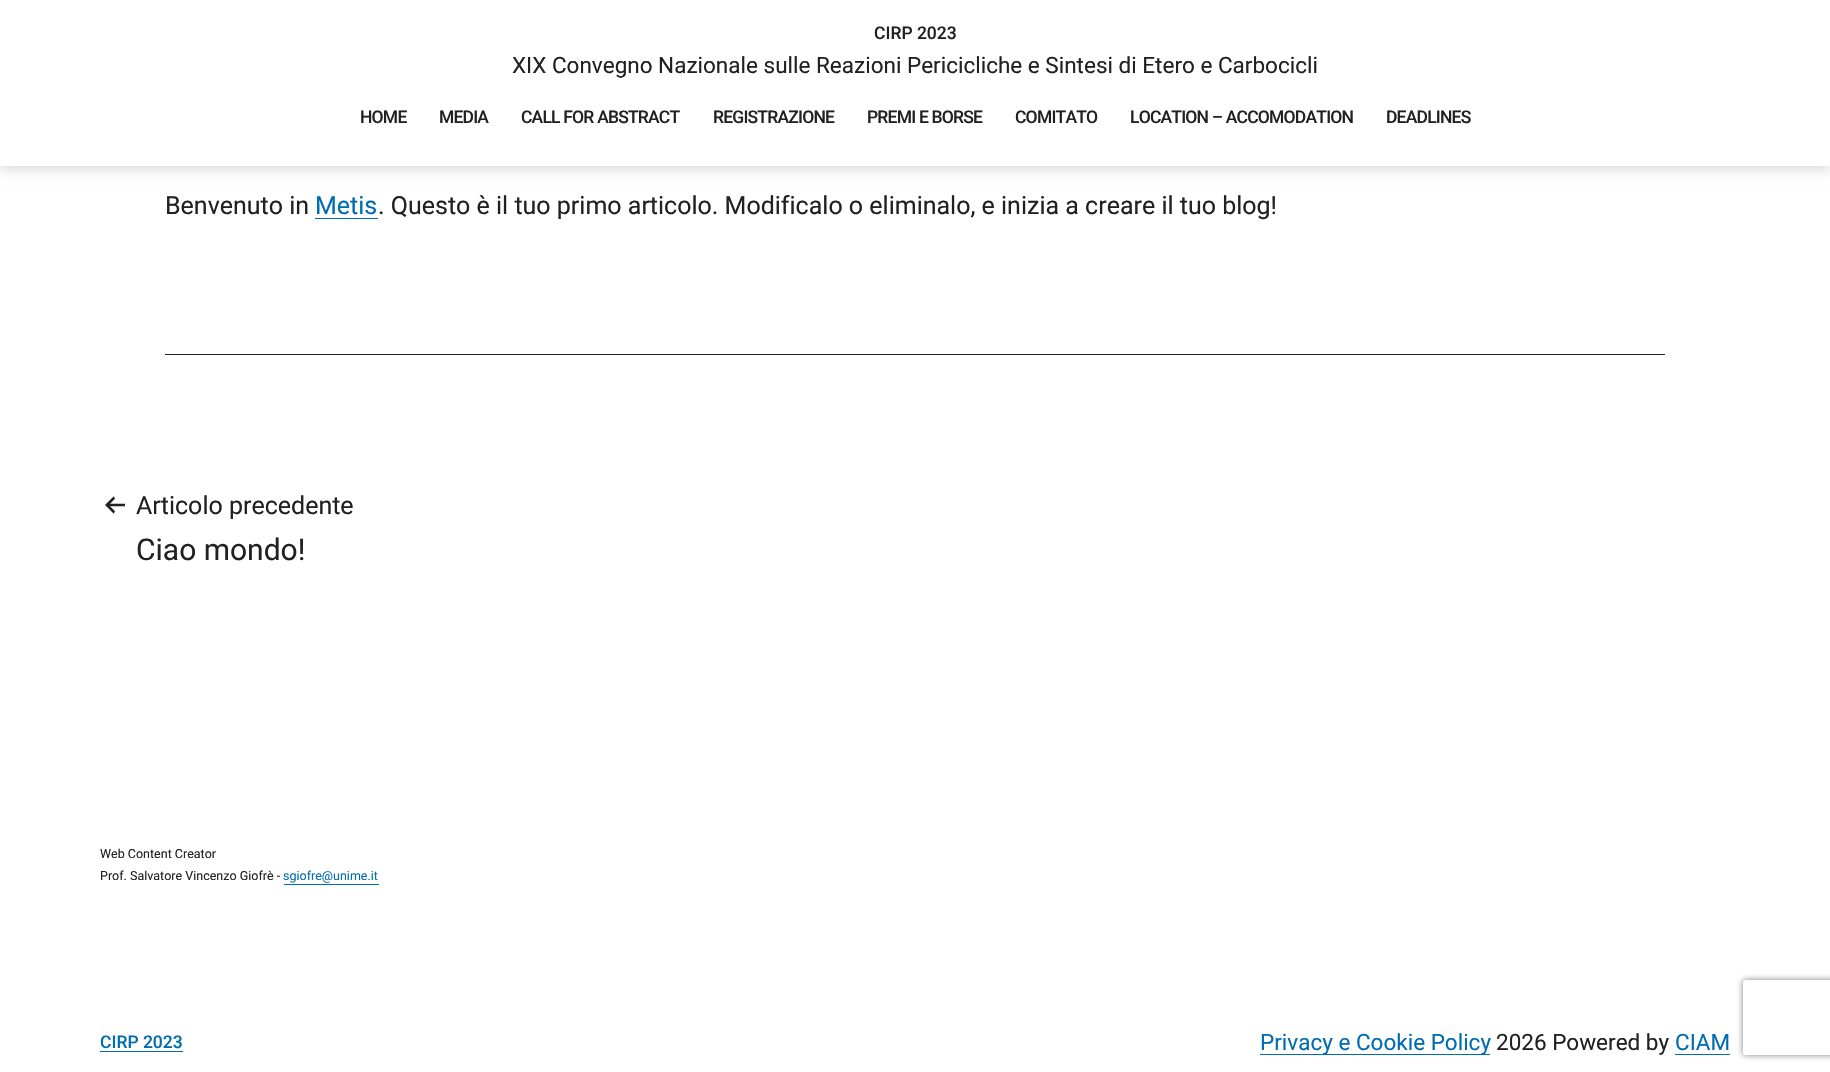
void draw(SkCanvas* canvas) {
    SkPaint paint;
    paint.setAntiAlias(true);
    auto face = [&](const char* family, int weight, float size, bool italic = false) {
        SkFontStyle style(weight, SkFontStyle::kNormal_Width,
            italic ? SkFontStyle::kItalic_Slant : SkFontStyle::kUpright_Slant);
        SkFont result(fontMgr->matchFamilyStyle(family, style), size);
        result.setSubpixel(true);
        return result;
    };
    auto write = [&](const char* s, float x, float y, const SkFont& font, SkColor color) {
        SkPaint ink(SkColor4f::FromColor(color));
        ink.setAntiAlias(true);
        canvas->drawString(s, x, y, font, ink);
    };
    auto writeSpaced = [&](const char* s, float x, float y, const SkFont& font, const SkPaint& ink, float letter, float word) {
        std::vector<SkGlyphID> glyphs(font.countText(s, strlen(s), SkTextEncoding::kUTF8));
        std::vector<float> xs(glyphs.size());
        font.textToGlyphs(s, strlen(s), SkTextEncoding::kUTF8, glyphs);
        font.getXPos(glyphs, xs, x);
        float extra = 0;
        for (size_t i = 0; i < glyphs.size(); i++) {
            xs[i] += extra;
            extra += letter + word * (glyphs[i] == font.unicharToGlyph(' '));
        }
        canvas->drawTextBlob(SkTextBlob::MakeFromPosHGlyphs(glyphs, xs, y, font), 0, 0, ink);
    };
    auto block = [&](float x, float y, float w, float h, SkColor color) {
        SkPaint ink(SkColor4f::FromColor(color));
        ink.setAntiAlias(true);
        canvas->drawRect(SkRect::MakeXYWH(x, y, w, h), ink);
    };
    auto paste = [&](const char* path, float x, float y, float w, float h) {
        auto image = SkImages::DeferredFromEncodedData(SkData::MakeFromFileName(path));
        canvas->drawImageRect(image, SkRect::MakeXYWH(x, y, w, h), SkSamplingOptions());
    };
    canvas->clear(SK_ColorWHITE);
    paint.setColor(SkColorSetARGB(41, 0, 0, 0));
    paint.setMaskFilter(SkMaskFilter::MakeBlur(kNormal_SkBlurStyle, 6));
    canvas->drawRect(SkRect::MakeXYWH(0, 3, 1830, 166), paint);
    paint.setMaskFilter(nullptr);
    block(0, 0, 1830, 166, SK_ColorWHITE);
    auto kFont1 = face("Roboto", 500, 17.5f);
    write("CIRP 2023", 874, 39, kFont1, SkColorSetRGB(33, 33, 33));
    auto kFont2 = face("Roboto", 400, 22.5f);
    write("XIX Convegno Nazionale sulle Reazioni Pericicliche e Sintesi di Etero e Carbocicli", 512, 73, kFont2, SkColorSetRGB(33, 33, 33));
    paint.setColor(SkColorSetRGB(33, 33, 33));
    writeSpaced("HOME", 360, 123, kFont1, paint, -0.8f, 0);
    writeSpaced("MEDIA", 439, 123, kFont1, paint, -0.8f, 0);
    writeSpaced("CALL FOR ABSTRACT", 521, 123, kFont1, paint, -0.8f, 0);
    writeSpaced("REGISTRAZIONE", 713, 123, kFont1, paint, -0.8f, 0);
    writeSpaced("PREMI E BORSE", 867, 123, kFont1, paint, -0.8f, 0);
    writeSpaced("COMITATO", 1015, 123, kFont1, paint, -0.8f, 0);
    writeSpaced("LOCATION – ACCOMODATION", 1130, 123, kFont1, paint, -0.8f, 0);
    writeSpaced("DEADLINES", 1386, 123, kFont1, paint, -0.8f, 0);
    auto kFont3 = face("Roboto", 400, 25);
    write("Benvenuto in", 165, 214, kFont3, SkColorSetRGB(33, 33, 33));
    write("Metis", 315, 214, kFont3, SkColorSetRGB(0, 109, 178));
    block(315, 218, 63, 1, SkColorSetRGB(0, 109, 178));
    write(". Questo è il tuo primo articolo. Modificalo o eliminalo, e inizia a creare il tuo blog!", 378, 214, kFont3, SkColorSetRGB(33, 33, 33));
    block(165, 354, 1500, 1, SkColorSetRGB(33, 33, 33));
    paste("pic1.png", 105, 496, 20, 18);
    write("Articolo precedente", 136, 514, kFont3, SkColorSetRGB(33, 33, 33));
    auto kFont4 = face("Roboto", 400, 30);
    write("Ciao mondo!", 136, 560, kFont4, SkColorSetRGB(33, 33, 33));
    auto kFont5 = face("Roboto", 400, 12.5f);
    write("Web Content Creator", 100, 858, kFont5, SkColorSetRGB(33, 33, 33));
    write("Prof. Salvatore Vincenzo Giofrè -", 100, 880, kFont5, SkColorSetRGB(33, 33, 33));
    write("sgiofre@unime.it", 283, 880, kFont5, SkColorSetRGB(0, 109, 178));
    block(284, 884, 95, 1, SkColorSetRGB(0, 109, 178));
    write("CIRP 2023", 100, 1048, kFont1, SkColorSetRGB(0, 109, 178));
    block(100, 1051, 83, 1, SkColorSetRGB(0, 109, 178));
    block(1260, 1054, 230, 1, SkColorSetRGB(0, 109, 178));
    write("Privacy e Cookie Policy", 1260, 1050, kFont2, SkColorSetRGB(0, 109, 178));
    write("2026 Powered by", 1496, 1050, kFont2, SkColorSetRGB(33, 33, 33));
    write("CIAM", 1675, 1050, kFont2, SkColorSetRGB(0, 109, 178));
    block(1675, 1054, 55, 1, SkColorSetRGB(0, 109, 178));
    canvas->save();
    canvas->clipPath(SkPathBuilder(SkPathFillType::kEvenOdd).moveTo(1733, 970).lineTo(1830, 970).lineTo(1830, 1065).lineTo(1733, 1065).close().moveTo(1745.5f, 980).lineTo(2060.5f, 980).cubicTo(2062, 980, 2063, 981, 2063, 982.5f).lineTo(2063, 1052.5f).cubicTo(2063, 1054, 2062, 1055, 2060.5f, 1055).lineTo(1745.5f, 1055).cubicTo(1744, 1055, 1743, 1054, 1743, 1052.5f).lineTo(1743, 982.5f).cubicTo(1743, 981, 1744, 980, 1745.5f, 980).close().detach(), true);
    paint.setColor(SkColorSetRGB(128, 128, 128));
    paint.setMaskFilter(SkMaskFilter::MakeBlur(kNormal_SkBlurStyle, 3));
    canvas->drawRoundRect(SkRect::MakeXYWH(1743, 980, 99, 75), 2.5f, 2.5f, paint);
    paint.setMaskFilter(nullptr);
    canvas->restore();
}
